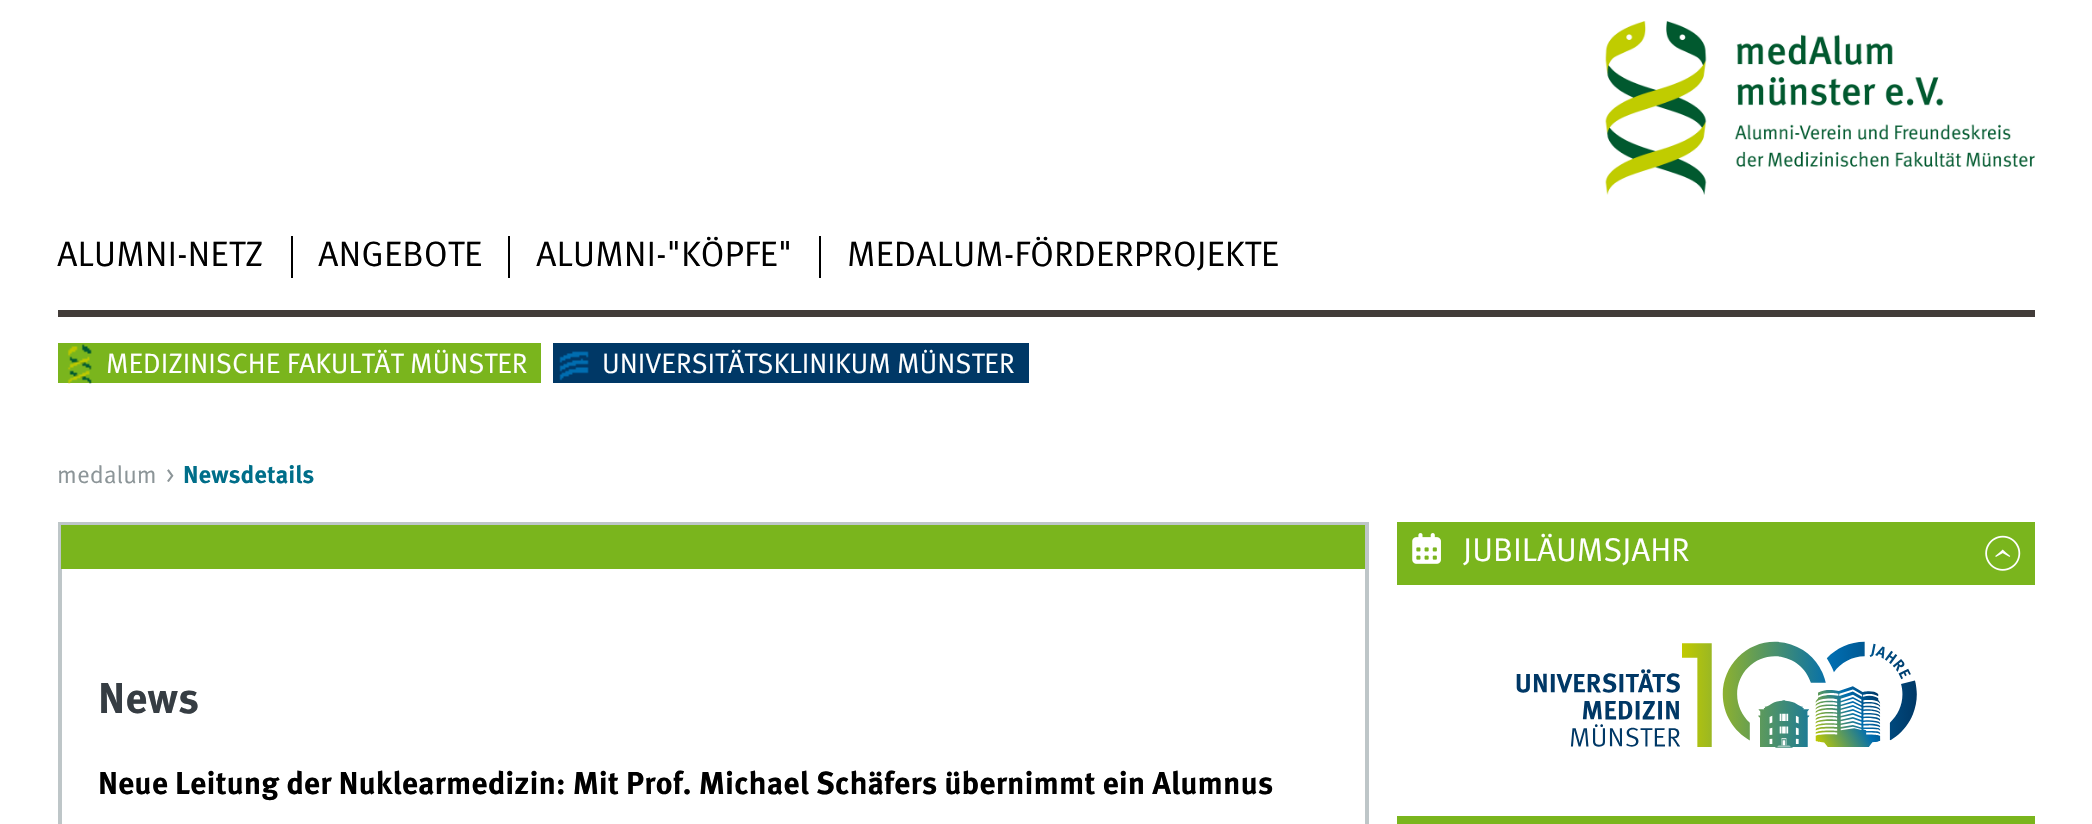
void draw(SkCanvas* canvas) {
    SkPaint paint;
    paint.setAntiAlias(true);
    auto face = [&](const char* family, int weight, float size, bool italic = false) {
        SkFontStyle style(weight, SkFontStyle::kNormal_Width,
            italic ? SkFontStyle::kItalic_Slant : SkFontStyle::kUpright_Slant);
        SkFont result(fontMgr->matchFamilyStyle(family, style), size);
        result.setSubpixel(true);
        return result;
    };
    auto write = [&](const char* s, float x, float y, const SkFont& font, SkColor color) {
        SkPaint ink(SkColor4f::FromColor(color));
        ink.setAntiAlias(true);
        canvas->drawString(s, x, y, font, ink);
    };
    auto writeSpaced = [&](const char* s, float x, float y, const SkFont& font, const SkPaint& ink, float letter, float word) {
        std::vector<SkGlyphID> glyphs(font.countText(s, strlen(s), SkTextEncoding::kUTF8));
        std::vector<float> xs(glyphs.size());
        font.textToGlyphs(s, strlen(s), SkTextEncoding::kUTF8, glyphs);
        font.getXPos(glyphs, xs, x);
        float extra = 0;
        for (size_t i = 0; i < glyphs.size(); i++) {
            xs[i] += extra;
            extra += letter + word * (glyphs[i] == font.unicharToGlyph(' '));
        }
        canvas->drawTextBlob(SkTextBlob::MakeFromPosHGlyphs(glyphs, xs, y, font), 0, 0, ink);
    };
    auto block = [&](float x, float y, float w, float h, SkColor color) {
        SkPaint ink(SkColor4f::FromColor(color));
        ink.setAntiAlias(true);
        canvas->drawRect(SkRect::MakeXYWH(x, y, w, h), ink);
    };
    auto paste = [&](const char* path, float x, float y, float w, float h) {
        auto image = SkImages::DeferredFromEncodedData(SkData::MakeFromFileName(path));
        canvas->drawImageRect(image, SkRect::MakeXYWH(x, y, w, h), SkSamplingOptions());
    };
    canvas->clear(SK_ColorWHITE);
    paste("pic1.png", 1605, 21, 431, 174);
    block(58, 310, 1977, 7, SkColorSetRGB(66, 60, 57));
    auto kFont1 = face("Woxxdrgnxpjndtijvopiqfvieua", 400, 35.25f);
    write("ALUMNI-NETZ", 57, 266, kFont1, SK_ColorBLACK);
    block(291, 236, 2, 42, SK_ColorBLACK);
    write("ANGEBOTE", 318, 266, kFont1, SK_ColorBLACK);
    block(508, 236, 2, 42, SK_ColorBLACK);
    write("ALUMNI-\"KÖPFE\"", 536, 266, kFont1, SK_ColorBLACK);
    block(819, 236, 2, 42, SK_ColorBLACK);
    write("MEDALUM-FÖRDERPROJEKTE", 847, 266, kFont1, SK_ColorBLACK);
    block(58, 343, 483, 40, SkColorSetRGB(122, 181, 29));
    paste("pic2.png", 67, 344, 25, 40);
    auto kFont2 = face("Woxxdrgnxpjndtijvopiqfvieua", 400, 27.9f);
    write("MEDIZINISCHE FAKULTÄT MÜNSTER", 106, 373, kFont2, SK_ColorWHITE);
    block(553, 343, 476, 40, SkColorSetRGB(0, 56, 102));
    paste("pic3.png", 559, 351, 30, 30);
    write("UNIVERSITÄTSKLINIKUM MÜNSTER", 602, 373, kFont2, SK_ColorWHITE);
    auto kFont3 = face("Woxxdrgnxpjndtijvopiqfvieua", 400, 24.5f);
    write("medalum", 57, 483, kFont3, SkColorSetRGB(140, 149, 152));
    write(">", 166, 483, kFont3, SkColorSetRGB(140, 149, 152));
    auto kFont4 = face("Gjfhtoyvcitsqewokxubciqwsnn", 700, 24.5f);
    write("Newsdetails", 183, 483, kFont4, SkColorSetRGB(0, 110, 137));
    block(1397, 522, 638, 63, SkColorSetRGB(122, 181, 29));
    paste("pic4.png", 1412, 533, 29, 31);
    auto kFont5 = face("Woxxdrgnxpjndtijvopiqfvieua", 400, 32.75f);
    write("JUBILÄUMSJAHR", 1463, 561, kFont5, SK_ColorWHITE);
    paste("pic5.png", 1985, 535, 36, 36);
    paste("pic6.png", 1516, 641, 401, 107);
    block(1397, 816, 638, 8, SkColorSetRGB(122, 181, 29));
    paint.setStyle(SkPaint::kStroke_Style);
    paint.setStrokeWidth(4);
    paint.setColor(SkColorSetRGB(190, 198, 200));
    canvas->drawRect(SkRect::MakeXYWH(60, 524, 1307, 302), paint);
    block(61, 525, 1304, 44, SkColorSetRGB(122, 181, 29));
    auto kFont6 = face("Gjfhtoyvcitsqewokxubciqwsnn", 700, 43);
    write("News", 98, 713, kFont6, SkColorSetRGB(54, 61, 67));
    auto kFont7 = face("Gjfhtoyvcitsqewokxubciqwsnn", 700, 31.65f);
    paint.setStyle(SkPaint::kFill_Style);
    paint.setColor(SK_ColorBLACK);
    writeSpaced("Neue Leitung der Nuklearmedizin: Mit Prof. Michael Schäfers übernimmt ein Alumnus", 98, 794, kFont7, paint, 0, -0.1f);
}
